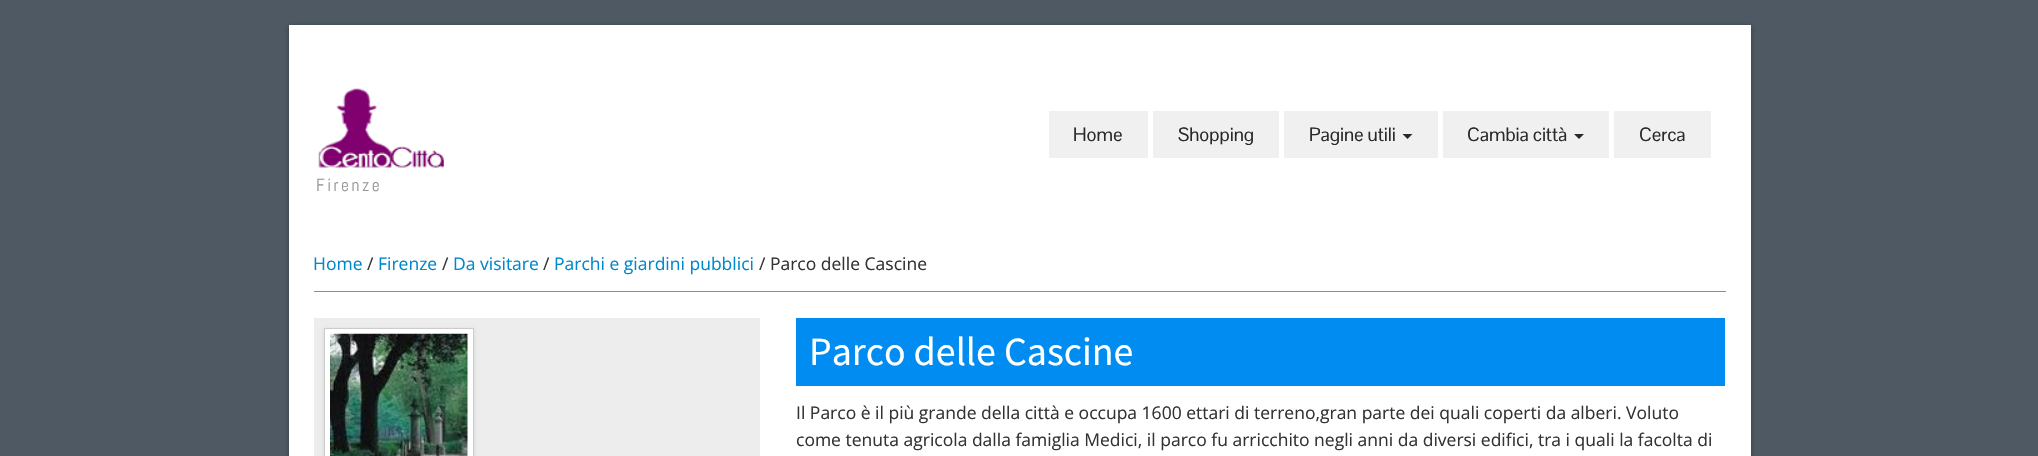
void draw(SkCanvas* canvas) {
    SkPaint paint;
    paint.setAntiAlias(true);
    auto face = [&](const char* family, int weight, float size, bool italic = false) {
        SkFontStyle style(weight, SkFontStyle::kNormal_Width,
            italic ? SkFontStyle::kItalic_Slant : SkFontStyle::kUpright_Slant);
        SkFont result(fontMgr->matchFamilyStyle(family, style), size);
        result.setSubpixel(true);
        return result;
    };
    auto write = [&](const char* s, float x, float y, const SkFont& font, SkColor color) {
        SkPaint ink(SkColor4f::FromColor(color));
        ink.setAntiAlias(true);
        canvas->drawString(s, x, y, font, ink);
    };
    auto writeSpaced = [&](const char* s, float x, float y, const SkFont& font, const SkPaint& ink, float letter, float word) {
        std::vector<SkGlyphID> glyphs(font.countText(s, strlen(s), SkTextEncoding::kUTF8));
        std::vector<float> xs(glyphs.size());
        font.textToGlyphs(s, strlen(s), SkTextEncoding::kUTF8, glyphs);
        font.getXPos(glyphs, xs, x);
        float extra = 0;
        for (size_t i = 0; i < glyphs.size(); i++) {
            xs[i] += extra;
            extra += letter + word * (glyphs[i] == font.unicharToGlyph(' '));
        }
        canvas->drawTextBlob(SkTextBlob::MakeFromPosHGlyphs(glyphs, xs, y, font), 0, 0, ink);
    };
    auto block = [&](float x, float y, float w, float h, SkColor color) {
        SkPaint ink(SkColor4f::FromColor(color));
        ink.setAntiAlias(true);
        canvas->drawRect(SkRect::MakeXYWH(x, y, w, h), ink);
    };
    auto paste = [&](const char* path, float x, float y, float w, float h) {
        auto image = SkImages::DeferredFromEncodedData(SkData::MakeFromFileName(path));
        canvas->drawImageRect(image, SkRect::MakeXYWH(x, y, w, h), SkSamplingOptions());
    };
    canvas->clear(SkColorSetRGB(79, 89, 99));
    paint.setColor(SkColorSetARGB(77, 0, 0, 0));
    paint.setMaskFilter(SkMaskFilter::MakeBlur(kNormal_SkBlurStyle, 2.5f));
    canvas->drawRect(SkRect::MakeXYWH(289, 26, 1462, 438), paint);
    paint.setMaskFilter(nullptr);
    block(289, 25, 1462, 431, SK_ColorWHITE);
    block(1049, 111, 99, 47, SkColorSetRGB(240, 240, 240));
    auto kFont1 = face("Pontano Sans", 400, 18.75f);
    write("Home", 1073, 141, kFont1, SkColorSetRGB(41, 41, 41));
    block(1153, 111, 126, 47, SkColorSetRGB(240, 240, 240));
    write("Shopping", 1178, 141, kFont1, SkColorSetRGB(41, 41, 41));
    block(1284, 111, 154, 47, SkColorSetRGB(240, 240, 240));
    write("Pagine utili", 1309, 141, kFont1, SkColorSetRGB(41, 41, 41));
    paint.setColor(SkColorSetRGB(41, 41, 41));
    canvas->drawPath(SkPathBuilder().moveTo(1402.5f, 134).lineTo(1412.5f, 134).lineTo(1407.5f, 139).close().detach(), paint);
    block(1443, 111, 166, 47, SkColorSetRGB(240, 240, 240));
    write("Cambia città", 1467, 141, kFont1, SkColorSetRGB(41, 41, 41));
    canvas->drawPath(SkPathBuilder().moveTo(1574, 134).lineTo(1584, 134).lineTo(1579, 139).close().detach(), paint);
    block(1614, 111, 97, 47, SkColorSetRGB(240, 240, 240));
    write("Cerca", 1639, 141, kFont1, SkColorSetRGB(41, 41, 41));
    paste("pic1.png", 318, 88, 126, 80);
    auto kFont2 = face("Abel", 400, 17.5f);
    paint.setColor(SkColorSetRGB(150, 150, 150));
    writeSpaced("Firenze", 316, 191, kFont2, paint, 2.5f, 0);
    block(314, 291, 1412, 1, SkColorSetRGB(0, 193, 255));
    auto kFont3 = face("Open Sans", 400, 17.5f);
    write("Home", 313, 270, kFont3, SkColorSetRGB(0, 136, 204));
    write("/", 367, 270, kFont3, SkColorSetRGB(51, 51, 51));
    write("Firenze", 378, 270, kFont3, SkColorSetRGB(0, 136, 204));
    write("/", 442, 270, kFont3, SkColorSetRGB(51, 51, 51));
    write("Da visitare", 453, 270, kFont3, SkColorSetRGB(0, 136, 204));
    write("/", 543, 270, kFont3, SkColorSetRGB(51, 51, 51));
    write("Parchi e giardini pubblici", 554, 270, kFont3, SkColorSetRGB(0, 136, 204));
    write("/ Parco delle Cascine", 759, 270, kFont3, SkColorSetRGB(51, 51, 51));
    block(314, 318, 446, 138, SkColorSetRGB(237, 237, 237));
    paint.setColor(SkColorSetARGB(26, 0, 0, 0));
    paint.setMaskFilter(SkMaskFilter::MakeBlur(kNormal_SkBlurStyle, 2));
    canvas->drawRect(SkRect::MakeXYWH(324, 329, 150, 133), paint);
    paint.setMaskFilter(nullptr);
    paint.setColor(SK_ColorWHITE);
    canvas->drawRect(SkRect::MakeXYWH(324.5f, 328.5f, 149, 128), paint);
    paint.setStyle(SkPaint::kStroke_Style);
    paint.setStrokeWidth(1);
    paint.setColor(SkColorSetRGB(204, 204, 204));
    canvas->drawRect(SkRect::MakeXYWH(324.5f, 328.5f, 149, 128), paint);
    paste("pic2.png", 330, 333, 138, 123);
    block(796, 318, 929, 68, SkColorSetRGB(0, 140, 241));
    auto kFont4 = face("Source Sans Pro", 400, 40);
    write("Parco delle Cascine", 809, 365, kFont4, SK_ColorWHITE);
    write("Il Parco è il più grande della città e occupa 1600 ettari di terreno,gran parte dei quali coperti da alberi. Voluto", 796, 419, kFont3, SkColorSetRGB(51, 51, 51));
    write("come tenuta agricola dalla famiglia Medici, il parco fu arricchito negli anni da diversi edifici, tra i quali la facolta di", 796, 446, kFont3, SkColorSetRGB(51, 51, 51));
}
